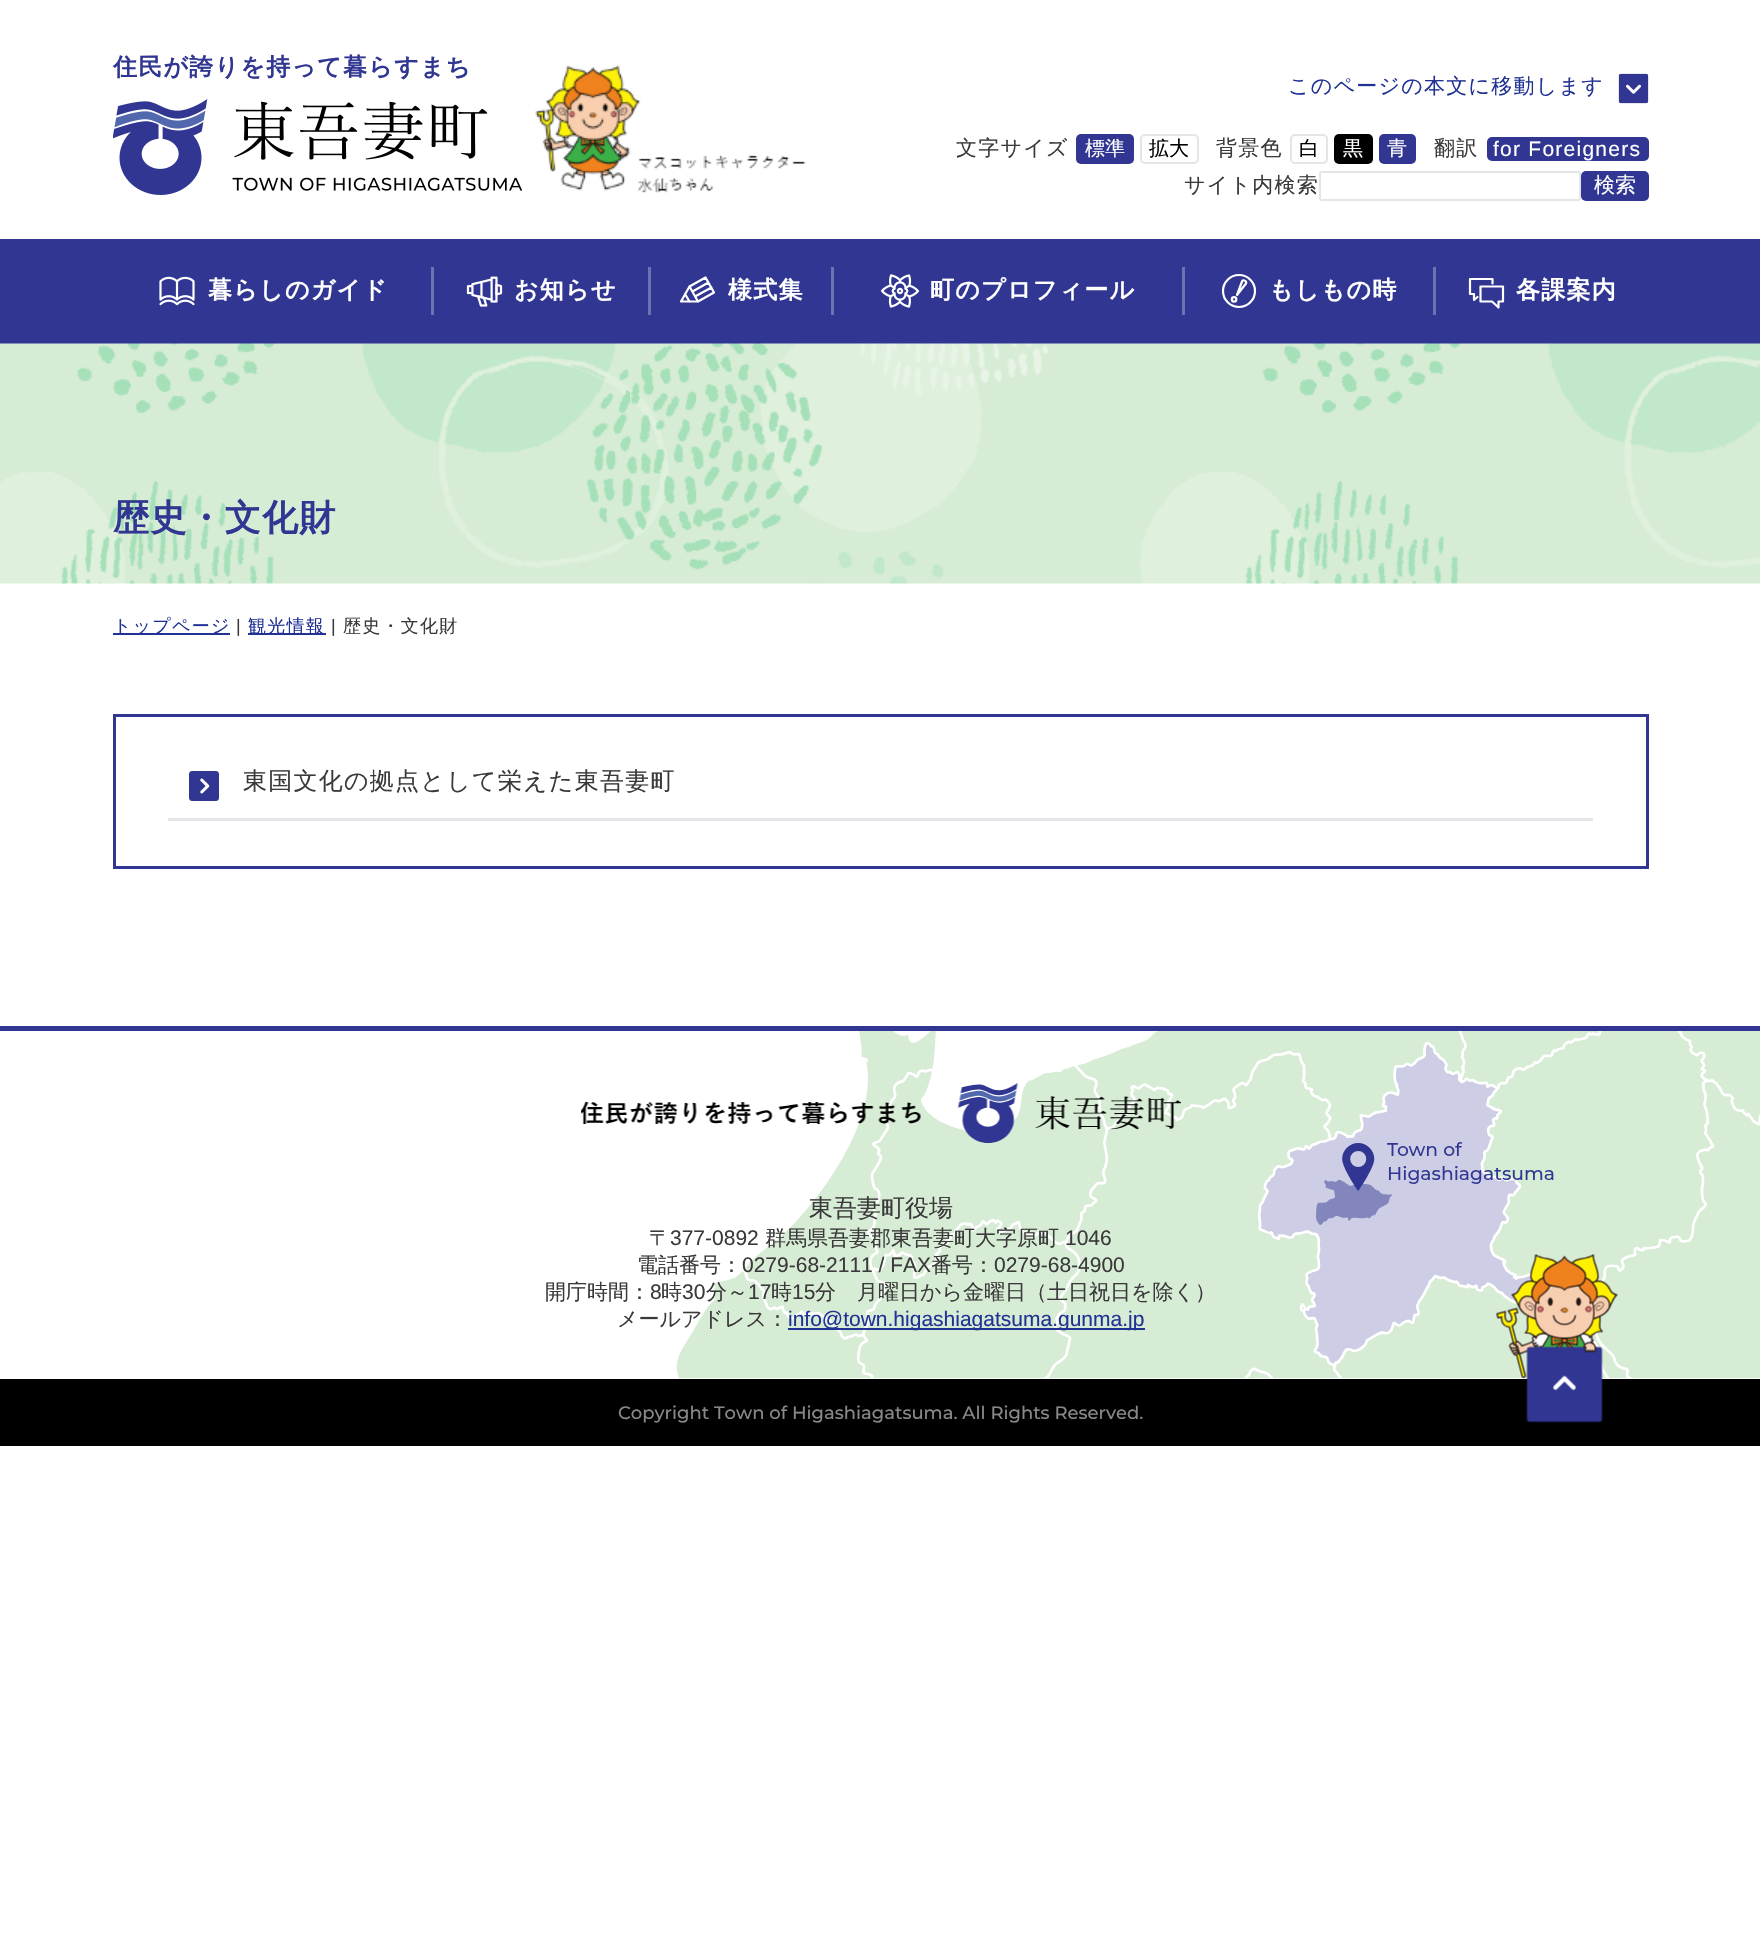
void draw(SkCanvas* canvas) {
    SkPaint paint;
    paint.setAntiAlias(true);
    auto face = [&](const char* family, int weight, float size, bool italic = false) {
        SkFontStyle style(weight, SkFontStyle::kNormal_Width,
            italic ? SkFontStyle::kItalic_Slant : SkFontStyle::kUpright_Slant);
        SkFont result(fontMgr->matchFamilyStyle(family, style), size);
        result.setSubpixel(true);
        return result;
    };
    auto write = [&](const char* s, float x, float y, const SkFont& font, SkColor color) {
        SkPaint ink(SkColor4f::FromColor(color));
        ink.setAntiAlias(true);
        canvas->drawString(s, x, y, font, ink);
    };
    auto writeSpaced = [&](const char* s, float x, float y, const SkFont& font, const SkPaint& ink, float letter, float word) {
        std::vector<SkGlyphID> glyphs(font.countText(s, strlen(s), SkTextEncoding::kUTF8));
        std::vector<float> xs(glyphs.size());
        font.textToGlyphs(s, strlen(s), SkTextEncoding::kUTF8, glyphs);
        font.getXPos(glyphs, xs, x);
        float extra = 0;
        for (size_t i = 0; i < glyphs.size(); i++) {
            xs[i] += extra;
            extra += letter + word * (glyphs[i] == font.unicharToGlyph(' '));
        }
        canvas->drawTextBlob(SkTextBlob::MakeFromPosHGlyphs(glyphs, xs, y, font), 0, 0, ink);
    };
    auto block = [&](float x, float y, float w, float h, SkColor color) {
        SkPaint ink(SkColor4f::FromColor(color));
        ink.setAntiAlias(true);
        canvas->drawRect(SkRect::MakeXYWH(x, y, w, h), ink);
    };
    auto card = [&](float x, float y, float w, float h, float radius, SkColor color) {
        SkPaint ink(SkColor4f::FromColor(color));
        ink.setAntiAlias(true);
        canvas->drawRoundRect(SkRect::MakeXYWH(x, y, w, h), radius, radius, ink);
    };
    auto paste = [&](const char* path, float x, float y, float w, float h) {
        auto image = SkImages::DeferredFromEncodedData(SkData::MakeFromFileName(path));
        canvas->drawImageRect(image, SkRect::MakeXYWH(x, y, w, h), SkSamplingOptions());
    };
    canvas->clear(SK_ColorWHITE);
    auto kFont1 = face("WenQuanYi Zen Hei", 700, 24);
    paint.setColor(SkColorSetRGB(48, 54, 145));
    writeSpaced("住民が誇りを持って暮らすまち", 113, 75, kFont1, paint, 1.25f, 0);
    paste("pic1.png", 113, 99, 409, 96);
    paste("pic2.png", 535, 65, 271, 128);
    auto kFont2 = face("WenQuanYi Zen Hei", 500, 21);
    paint.setColor(SkColorSetRGB(33, 50, 148));
    writeSpaced("このページの本文に移動します", 1288, 93, kFont2, paint, 1.25f, 0);
    paste("pic3.png", 1618, 73, 31, 31);
    paint.setColor(SkColorSetRGB(58, 58, 58));
    writeSpaced("文字サイズ", 956, 155, kFont2, paint, 1.25f, 0);
    card(1076, 134, 58, 30, 5, SkColorSetRGB(48, 54, 145));
    auto kFont3 = face("WenQuanYi Zen Hei", 500, 20);
    write("標準", 1085, 155, kFont3, SK_ColorWHITE);
    paint.setStyle(SkPaint::kStroke_Style);
    paint.setStrokeWidth(2);
    paint.setColor(SkColorSetRGB(228, 228, 233));
    canvas->drawRoundRect(SkRect::MakeXYWH(1141, 135, 57, 28), 4, 4, paint);
    write("拡大", 1149, 155, kFont3, SK_ColorBLACK);
    paint.setStyle(SkPaint::kFill_Style);
    paint.setColor(SkColorSetRGB(58, 58, 58));
    writeSpaced("背景色", 1216, 155, kFont2, paint, 1.25f, 0);
    paint.setStyle(SkPaint::kStroke_Style);
    paint.setColor(SkColorSetRGB(228, 228, 233));
    canvas->drawRoundRect(SkRect::MakeXYWH(1291, 135, 36, 28), 4, 4, paint);
    write("白", 1299, 155, kFont3, SK_ColorBLACK);
    card(1334, 134, 39, 30, 5, SK_ColorBLACK);
    write("黒", 1343, 155, kFont3, SK_ColorWHITE);
    card(1379, 134, 37, 30, 5, SkColorSetRGB(48, 54, 145));
    write("青", 1387, 155, kFont3, SK_ColorWHITE);
    paint.setStyle(SkPaint::kFill_Style);
    paint.setColor(SkColorSetRGB(58, 58, 58));
    writeSpaced("翻訳", 1434, 155, kFont2, paint, 1.25f, 0);
    card(1487, 137, 162, 24, 5, SkColorSetRGB(48, 54, 145));
    auto kFont4 = face("Liberation Sans", 400, 21);
    paint.setColor(SK_ColorWHITE);
    writeSpaced("for Foreigners", 1493, 156, kFont4, paint, 1.25f, 0);
    paint.setColor(SkColorSetRGB(58, 58, 58));
    writeSpaced("サイト内検索", 1184, 192, kFont2, paint, 1.25f, 0);
    paint.setStyle(SkPaint::kStroke_Style);
    paint.setColor(SkColorSetRGB(228, 228, 233));
    canvas->drawRoundRect(SkRect::MakeXYWH(1320, 172, 260, 28), 2, 2, paint);
    card(1581, 171, 68, 30, 5, SkColorSetRGB(48, 54, 145));
    write("検索", 1594, 192, kFont2, SK_ColorWHITE);
    block(0, 239, 1760, 105, SkColorSetRGB(48, 54, 145));
    paste("pic4.png", 159, 276, 36, 30);
    paint.setStyle(SkPaint::kFill_Style);
    paint.setColor(SK_ColorWHITE);
    writeSpaced("暮らしのガイド", 208, 298, kFont1, paint, 1.25f, 0);
    block(431, 267, 3, 48, SkColorSetRGB(110, 114, 178));
    paste("pic5.png", 466, 276, 37, 31);
    writeSpaced("お知らせ", 514, 298, kFont1, paint, 1.25f, 0);
    block(648, 267, 3, 48, SkColorSetRGB(110, 114, 178));
    paint.setStyle(SkPaint::kStroke_Style);
    paint.setStrokeWidth(2.2f);
    paint.setStrokeCap(SkPaint::kRound_Cap);
    paint.setStrokeJoin(SkPaint::kRound_Join);
    canvas->drawPath(SkPathBuilder().moveTo(689.5f, 286.5f).lineTo(681, 301.5f).lineTo(698, 301.5f).moveTo(689.5f, 301.5f).lineTo(685, 294).moveTo(689.5f, 286.5f).lineTo(705.5f, 277.5f).lineTo(714, 292.5f).lineTo(698, 301.5f).close().moveTo(692.5f, 291.5f).lineTo(708.5f, 282.5f).moveTo(711.5f, 287.5f).lineTo(695, 296.5f).detach(), paint);
    paint.setStyle(SkPaint::kFill_Style);
    writeSpaced("様式集", 728, 298, kFont1, paint, 1.25f, 0);
    block(831, 267, 3, 48, SkColorSetRGB(110, 114, 178));
    paste("pic6.png", 880, 274, 40, 34);
    writeSpaced("町のプロフィール", 930, 298, kFont1, paint, 1.25f, 0);
    block(1182, 267, 3, 48, SkColorSetRGB(110, 114, 178));
    paint.setStyle(SkPaint::kStroke_Style);
    paint.setStrokeCap(SkPaint::kButt_Cap);
    paint.setStrokeJoin(SkPaint::kMiter_Join);
    canvas->drawCircle(1239, 291, 16, paint);
    canvas->drawCircle(1234.1f, 299.4f, 2.2f, paint);
    paint.setStrokeCap(SkPaint::kRound_Cap);
    paint.setStrokeJoin(SkPaint::kRound_Join);
    canvas->drawPath(SkPathBuilder().moveTo(1242, 281.5f).lineTo(1237, 295).lineTo(1246, 283.5f).cubicTo(1247, 281, 1243, 279, 1242, 281.5f).close().detach(), paint);
    paint.setStyle(SkPaint::kFill_Style);
    writeSpaced("もしもの時", 1269, 298, kFont1, paint, 1.25f, 0);
    block(1433, 267, 3, 48, SkColorSetRGB(110, 114, 178));
    paint.setStyle(SkPaint::kStroke_Style);
    canvas->drawPath(SkPathBuilder().moveTo(1492.5f, 283.5f).lineTo(1492.5f, 279).lineTo(1470, 279).lineTo(1470, 294).lineTo(1474, 294).lineTo(1474, 300).lineTo(1477.5f, 297).moveTo(1480.5f, 286.5f).lineTo(1480.5f, 301.5f).lineTo(1492, 301.5f).lineTo(1498.5f, 307.5f).lineTo(1498.5f, 301.5f).lineTo(1503, 301.5f).lineTo(1503, 286.5f).close().detach(), paint);
    paint.setStyle(SkPaint::kFill_Style);
    writeSpaced("各課案内", 1516, 298, kFont1, paint, 1.25f, 0);
    block(0, 1026, 1760, 5, SkColorSetRGB(48, 54, 145));
    paste("pic7.png", 0, 343, 1760, 241);
    auto kFont5 = face("WenQuanYi Zen Hei", 700, 36);
    paint.setColor(SkColorSetRGB(48, 54, 145));
    writeSpaced("歴史・文化財", 113, 530, kFont5, paint, 1.25f, 0);
    block(113, 633, 117, 2, SkColorSetRGB(33, 50, 148));
    auto kFont6 = face("WenQuanYi Zen Hei", 500, 18);
    paint.setColor(SkColorSetRGB(33, 50, 148));
    writeSpaced("トップページ", 113, 632, kFont6, paint, 1.25f, 0);
    auto kFont7 = face("Liberation Sans", 400, 18);
    paint.setColor(SkColorSetRGB(58, 58, 58));
    writeSpaced("|", 236, 632, kFont7, paint, 1.25f, 0);
    block(248, 633, 78, 2, SkColorSetRGB(33, 50, 148));
    paint.setColor(SkColorSetRGB(33, 50, 148));
    writeSpaced("観光情報", 248, 632, kFont6, paint, 1.25f, 0);
    paint.setColor(SkColorSetRGB(58, 58, 58));
    writeSpaced("|", 331, 632, kFont7, paint, 1.25f, 0);
    writeSpaced("歴史・文化財", 343, 632, kFont6, paint, 1.25f, 0);
    paint.setStyle(SkPaint::kStroke_Style);
    paint.setStrokeWidth(3);
    paint.setStrokeCap(SkPaint::kButt_Cap);
    paint.setStrokeJoin(SkPaint::kMiter_Join);
    paint.setColor(SkColorSetRGB(48, 54, 145));
    canvas->drawRect(SkRect::MakeXYWH(114.5f, 715.5f, 1533, 152), paint);
    block(168, 818, 1425, 3, SkColorSetRGB(228, 228, 233));
    paste("pic8.png", 189, 771, 30, 30);
    auto kFont8 = face("WenQuanYi Zen Hei", 500, 24);
    paint.setStyle(SkPaint::kFill_Style);
    paint.setColor(SkColorSetRGB(58, 58, 58));
    writeSpaced("東国文化の拠点として栄えた東吾妻町", 243, 789, kFont8, paint, 1.25f, 0);
    paste("pic9.png", 676, 1031, 1084, 348);
    paste("pic10.png", 581, 1083, 600, 60);
    write("東吾妻町役場", 809, 1216, kFont8, SkColorSetRGB(58, 58, 58));
    write("〒", 649, 1245, kFont2, SkColorSetRGB(58, 58, 58));
    write("377-0892", 670, 1245, kFont4, SkColorSetRGB(58, 58, 58));
    write("群馬県吾妻郡東吾妻町大字原町", 765, 1245, kFont2, SkColorSetRGB(58, 58, 58));
    write("1046", 1065, 1245, kFont4, SkColorSetRGB(58, 58, 58));
    write("電話番号：", 637, 1272, kFont2, SkColorSetRGB(58, 58, 58));
    write("0279-68-2111 / FAX", 742, 1272, kFont4, SkColorSetRGB(58, 58, 58));
    write("番号：", 931, 1272, kFont2, SkColorSetRGB(58, 58, 58));
    write("0279-68-4900", 994, 1272, kFont4, SkColorSetRGB(58, 58, 58));
    write("開庁時間：", 545, 1299, kFont2, SkColorSetRGB(58, 58, 58));
    write("8", 650, 1299, kFont4, SkColorSetRGB(58, 58, 58));
    write("時", 661, 1299, kFont2, SkColorSetRGB(58, 58, 58));
    write("30", 682, 1299, kFont4, SkColorSetRGB(58, 58, 58));
    write("分～", 706, 1299, kFont2, SkColorSetRGB(58, 58, 58));
    write("17", 748, 1299, kFont4, SkColorSetRGB(58, 58, 58));
    write("時", 771, 1299, kFont2, SkColorSetRGB(58, 58, 58));
    write("15", 792, 1299, kFont4, SkColorSetRGB(58, 58, 58));
    write("分　月曜日から金曜日（土日祝日を除く）", 815, 1299, kFont2, SkColorSetRGB(58, 58, 58));
    write("メールアドレス：", 617, 1326, kFont2, SkColorSetRGB(58, 58, 58));
    block(788, 1328, 357, 2, SkColorSetRGB(33, 50, 148));
    write("info@town.higashiagatsuma.gunma.jp", 788, 1326, kFont4, SkColorSetRGB(33, 50, 148));
    block(0, 1379, 1760, 67, SK_ColorBLACK);
    paste("pic11.png", 1496, 1254, 122, 169);
    auto kFont9 = face("Montserrat", 100, 18);
    write("Copyright Town of Higashiagatsuma. All Rights Reserved.", 618, 1419, kFont9, SkColorSetRGB(136, 136, 136));
}
